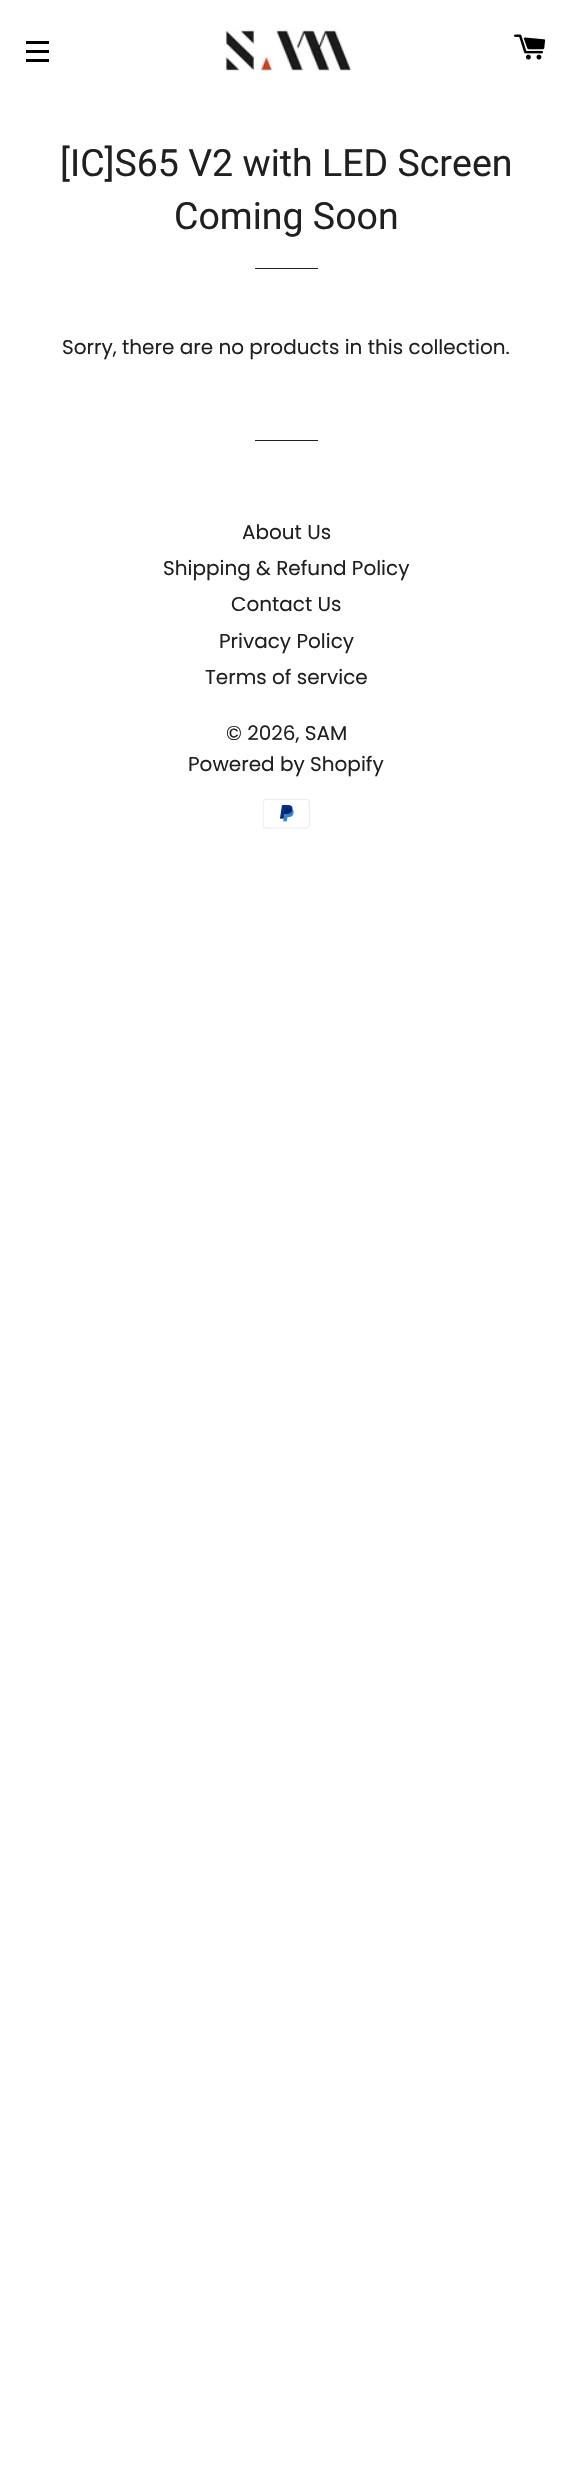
void draw(SkCanvas* canvas) {
    SkPaint paint;
    paint.setAntiAlias(true);
    auto face = [&](const char* family, int weight, float size, bool italic = false) {
        SkFontStyle style(weight, SkFontStyle::kNormal_Width,
            italic ? SkFontStyle::kItalic_Slant : SkFontStyle::kUpright_Slant);
        SkFont result(fontMgr->matchFamilyStyle(family, style), size);
        result.setSubpixel(true);
        return result;
    };
    auto write = [&](const char* s, float x, float y, const SkFont& font, SkColor color) {
        SkPaint ink(SkColor4f::FromColor(color));
        ink.setAntiAlias(true);
        canvas->drawString(s, x, y, font, ink);
    };
    auto block = [&](float x, float y, float w, float h, SkColor color) {
        SkPaint ink(SkColor4f::FromColor(color));
        ink.setAntiAlias(true);
        canvas->drawRect(SkRect::MakeXYWH(x, y, w, h), ink);
    };
    auto paste = [&](const char* path, float x, float y, float w, float h) {
        auto image = SkImages::DeferredFromEncodedData(SkData::MakeFromFileName(path));
        canvas->drawImageRect(image, SkRect::MakeXYWH(x, y, w, h), SkSamplingOptions());
    };
    canvas->clear(SK_ColorWHITE);
    block(26, 41, 23, 3, SK_ColorBLACK);
    block(26, 50, 23, 3, SK_ColorBLACK);
    block(26, 59, 23, 3, SK_ColorBLACK);
    paste("pic1.png", 224, 29, 128, 43);
    paste("pic2.png", 514, 34, 32, 26);
    auto kFont1 = face("Roboto", 400, 37.5f);
    write("[IC]S65 V2 with LED Screen", 60, 176, kFont1, SkColorSetRGB(31, 32, 33));
    write("Coming Soon", 174, 229, kFont1, SkColorSetRGB(31, 32, 33));
    block(255, 268, 63, 1, SkColorSetRGB(31, 32, 33));
    auto kFont2 = face("Poppins", 400, 20);
    write("Sorry, there are no products in this collection.", 62, 354, kFont2, SkColorSetRGB(31, 32, 33));
    block(255, 440, 63, 1, SkColorSetRGB(31, 32, 33));
    write("About Us", 242, 539, kFont2, SkColorSetRGB(31, 32, 33));
    write("Shipping & Refund Policy", 163, 575, kFont2, SkColorSetRGB(31, 32, 33));
    write("Contact Us", 231, 611, kFont2, SkColorSetRGB(31, 32, 33));
    write("Privacy Policy", 219, 648, kFont2, SkColorSetRGB(31, 32, 33));
    write("Terms of service", 205, 684, kFont2, SkColorSetRGB(31, 32, 33));
    write("© 2026, SAM", 226, 740, kFont2, SkColorSetRGB(31, 32, 33));
    write("Powered by Shopify", 188, 771, kFont2, SkColorSetRGB(31, 32, 33));
    paste("pic3.png", 263, 799, 47, 30);
}
